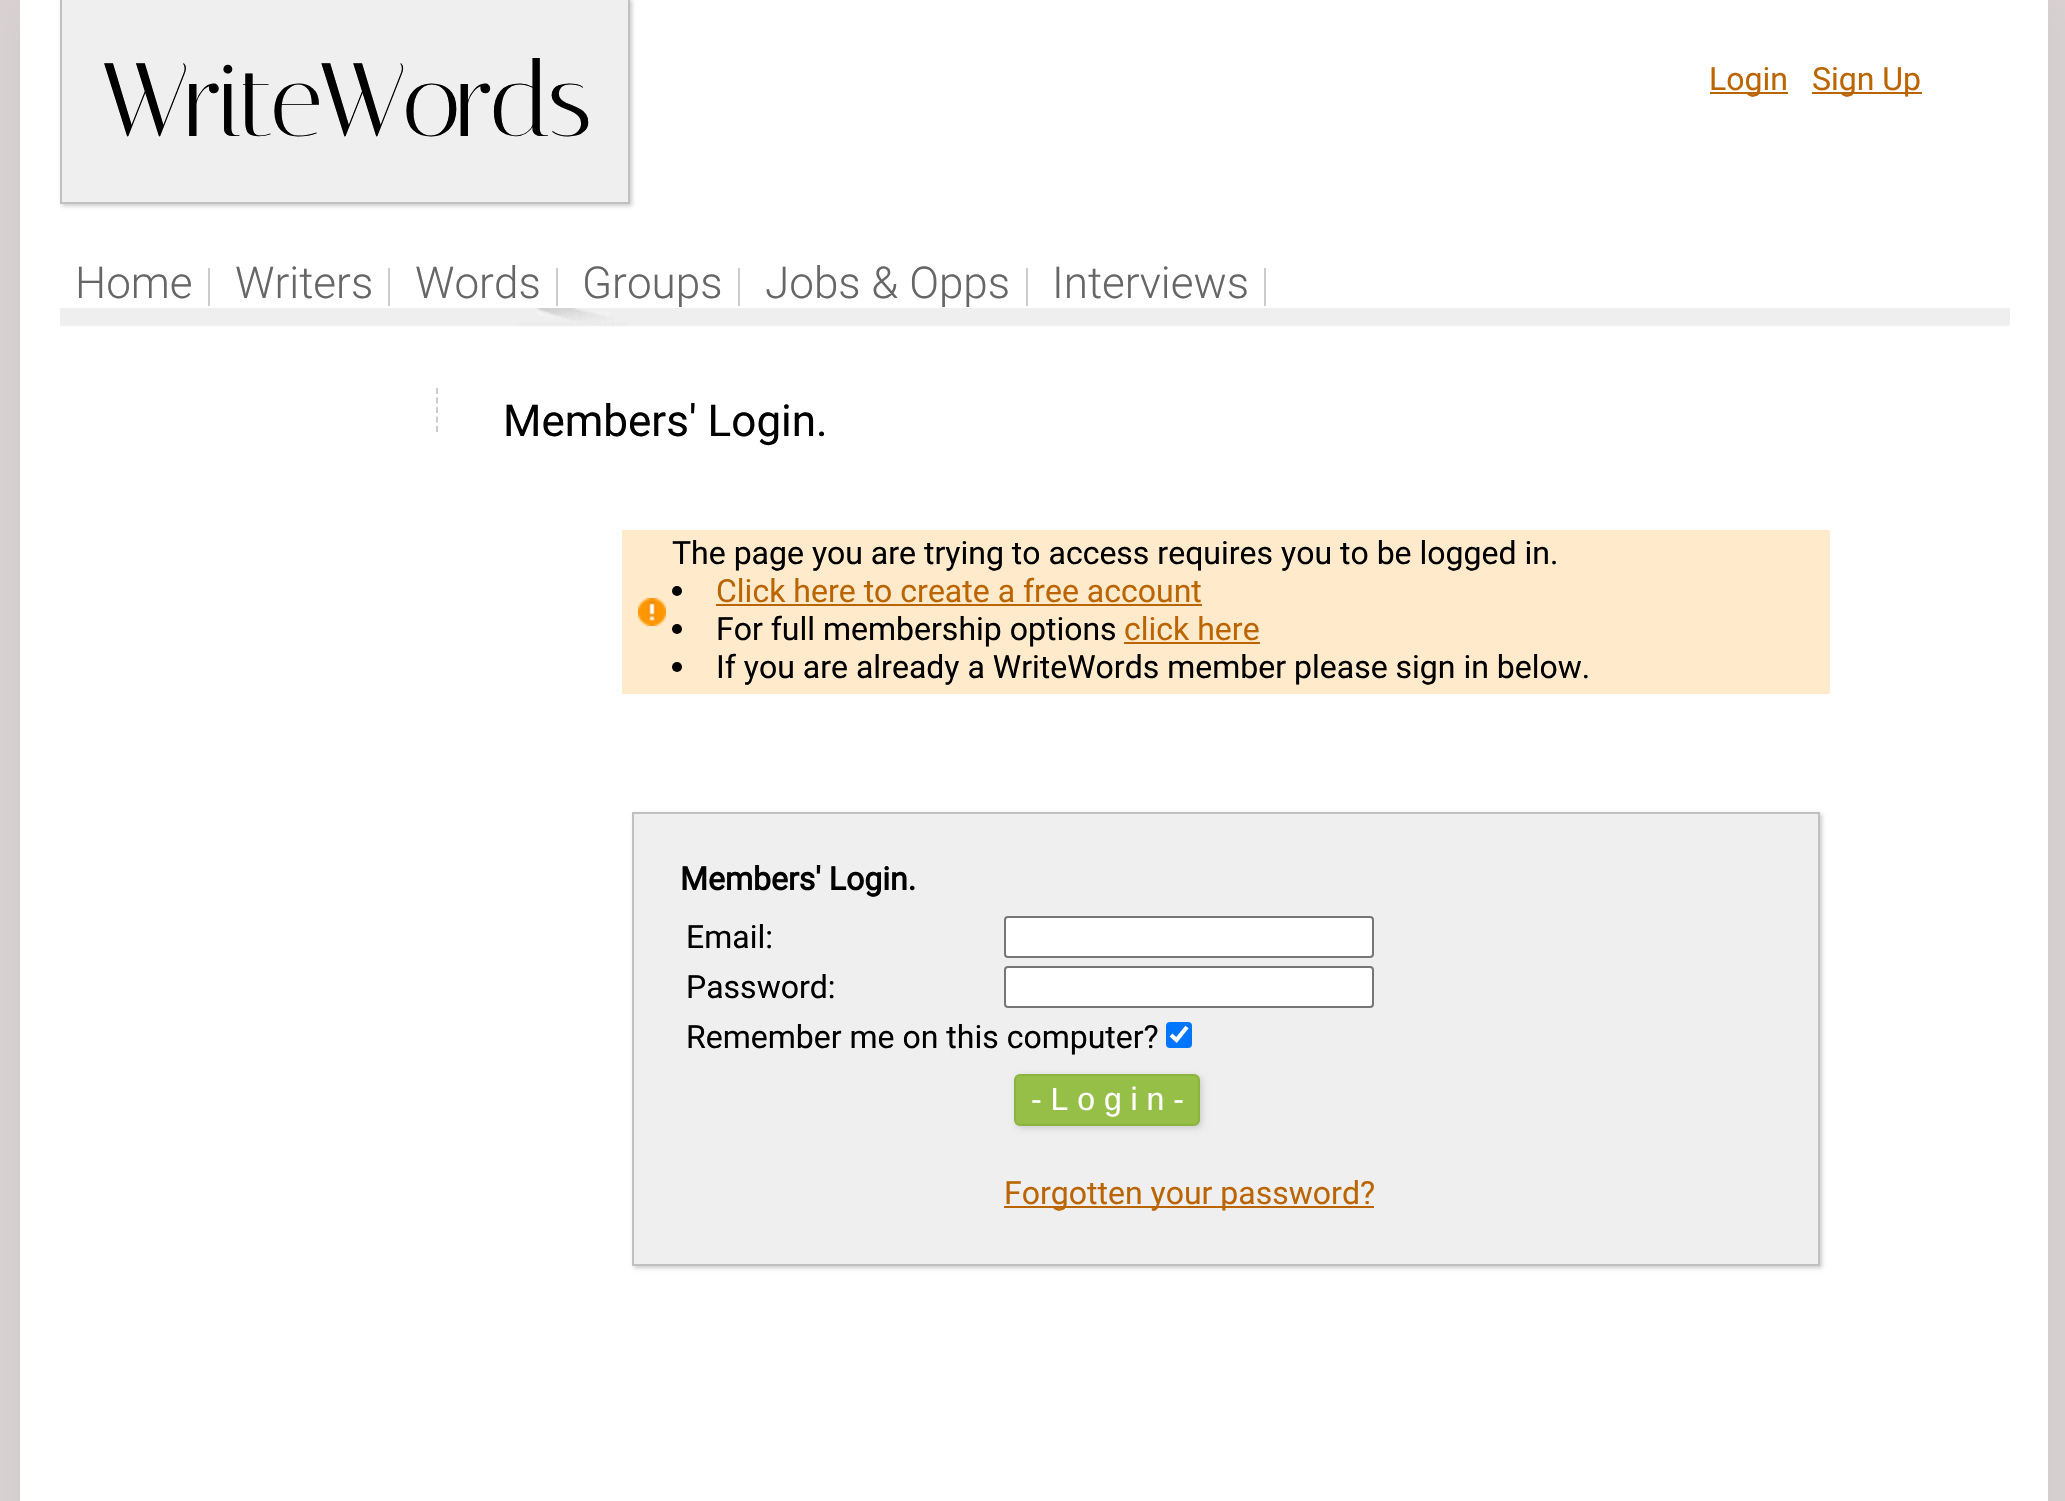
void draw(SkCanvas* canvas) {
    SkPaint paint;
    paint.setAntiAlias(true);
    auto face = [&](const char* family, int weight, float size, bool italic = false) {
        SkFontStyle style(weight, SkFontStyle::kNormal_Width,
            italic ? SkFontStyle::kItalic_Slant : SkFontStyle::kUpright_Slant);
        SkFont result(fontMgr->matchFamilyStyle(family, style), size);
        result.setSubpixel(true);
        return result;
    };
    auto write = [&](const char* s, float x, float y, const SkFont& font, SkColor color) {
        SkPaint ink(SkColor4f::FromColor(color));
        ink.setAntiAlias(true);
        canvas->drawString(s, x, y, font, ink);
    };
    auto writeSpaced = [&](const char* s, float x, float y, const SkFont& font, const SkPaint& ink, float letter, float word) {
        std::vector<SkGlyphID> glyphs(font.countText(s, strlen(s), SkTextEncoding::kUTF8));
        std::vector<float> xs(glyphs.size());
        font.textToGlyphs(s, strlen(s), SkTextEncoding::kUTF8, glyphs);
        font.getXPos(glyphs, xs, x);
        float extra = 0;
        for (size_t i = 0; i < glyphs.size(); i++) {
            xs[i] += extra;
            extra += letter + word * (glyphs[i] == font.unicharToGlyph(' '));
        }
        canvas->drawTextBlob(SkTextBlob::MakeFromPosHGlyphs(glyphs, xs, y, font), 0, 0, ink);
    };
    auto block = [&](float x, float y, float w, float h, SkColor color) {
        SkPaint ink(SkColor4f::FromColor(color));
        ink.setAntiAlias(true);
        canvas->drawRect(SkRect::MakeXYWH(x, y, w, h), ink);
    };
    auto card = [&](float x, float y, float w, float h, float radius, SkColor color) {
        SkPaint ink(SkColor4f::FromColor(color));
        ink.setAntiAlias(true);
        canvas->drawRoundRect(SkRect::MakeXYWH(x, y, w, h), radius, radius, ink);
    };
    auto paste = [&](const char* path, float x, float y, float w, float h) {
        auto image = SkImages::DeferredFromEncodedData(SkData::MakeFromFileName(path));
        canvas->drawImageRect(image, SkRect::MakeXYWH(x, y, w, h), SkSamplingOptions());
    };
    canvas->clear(SkColorSetRGB(219, 210, 210));
    paint.setColor(SkColorSetRGB(204, 204, 204));
    paint.setMaskFilter(SkMaskFilter::MakeBlur(kNormal_SkBlurStyle, 20));
    canvas->drawRect(SkRect::MakeXYWH(22, 2, 2028, 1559), paint);
    paint.setMaskFilter(nullptr);
    block(20, 0, 2028, 1501, SK_ColorWHITE);
    paint.setMaskFilter(SkMaskFilter::MakeBlur(kNormal_SkBlurStyle, 2));
    canvas->drawRect(SkRect::MakeXYWH(62, 0, 570, 206), paint);
    paint.setMaskFilter(nullptr);
    paint.setColor(SkColorSetRGB(239, 239, 239));
    canvas->drawRect(SkRect::MakeXYWH(61, -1, 568, 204), paint);
    paint.setStyle(SkPaint::kStroke_Style);
    paint.setStrokeWidth(2);
    paint.setColor(SkColorSetRGB(192, 192, 192));
    canvas->drawRect(SkRect::MakeXYWH(61, -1, 568, 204), paint);
    auto kFont1 = face("Italiana", 400, 104);
    paint.setStyle(SkPaint::kFill_Style);
    paint.setColor(SK_ColorBLACK);
    writeSpaced("WriteWords", 101, 136, kFont1, paint, -4, 0);
    block(1710, 92, 78, 2, SkColorSetRGB(187, 101, 1));
    auto kFont2 = face("Roboto", 400, 32);
    write("Login", 1709, 90, kFont2, SkColorSetRGB(187, 101, 1));
    block(1812, 92, 110, 2, SkColorSetRGB(187, 101, 1));
    write("Sign Up", 1812, 90, kFont2, SkColorSetRGB(187, 101, 1));
    auto kFont3 = face("Roboto", 300, 44);
    write("Home", 75, 298, kFont3, SkColorSetRGB(102, 102, 102));
    block(208, 268, 2, 38, SkColorSetRGB(204, 204, 204));
    write("Writers", 235, 298, kFont3, SkColorSetRGB(102, 102, 102));
    block(388, 268, 2, 38, SkColorSetRGB(204, 204, 204));
    write("Words", 415, 298, kFont3, SkColorSetRGB(102, 102, 102));
    block(556, 268, 2, 38, SkColorSetRGB(204, 204, 204));
    write("Groups", 582, 298, kFont3, SkColorSetRGB(102, 102, 102));
    block(738, 268, 2, 38, SkColorSetRGB(204, 204, 204));
    write("Jobs & Opps", 765, 298, kFont3, SkColorSetRGB(102, 102, 102));
    block(1026, 268, 2, 38, SkColorSetRGB(204, 204, 204));
    write("Interviews", 1052, 298, kFont3, SkColorSetRGB(102, 102, 102));
    block(1264, 268, 2, 38, SkColorSetRGB(204, 204, 204));
    paste("pic1.png", 60, 308, 1950, 19);
    paint.setStyle(SkPaint::kStroke_Style);
    paint.setColor(SkColorSetRGB(204, 204, 204));
    paint.setPathEffect(SkDashPathEffect::Make({{6, 3.5f}}, 0));
    canvas->drawPath(SkPathBuilder().moveTo(437, 388).lineTo(437, 432).detach(), paint);
    paint.setPathEffect(nullptr);
    auto kFont4 = face("Roboto", 400, 44);
    write("Members' Login.", 503, 436, kFont4, SK_ColorBLACK);
    block(622, 530, 1208, 164, SkColorSetRGB(255, 234, 204));
    paste("pic2.png", 638, 598, 28, 28);
    write("The page you are trying to access requires you to be logged in.", 672, 564, kFont2, SK_ColorBLACK);
    paint.setStyle(SkPaint::kFill_Style);
    paint.setColor(SK_ColorBLACK);
    canvas->drawCircle(677, 591, 5, paint);
    write("Click here to create a free account", 716, 602, kFont2, SkColorSetRGB(187, 101, 1));
    block(716, 604, 486, 2, SkColorSetRGB(187, 101, 1));
    canvas->drawCircle(677, 629, 5, paint);
    write("For full membership options", 716, 640, kFont2, SK_ColorBLACK);
    write("click here", 1124, 640, kFont2, SkColorSetRGB(187, 101, 1));
    block(1124, 642, 136, 2, SkColorSetRGB(187, 101, 1));
    canvas->drawCircle(677, 667, 5, paint);
    write("If you are already a WriteWords member please sign in below.", 716, 678, kFont2, SK_ColorBLACK);
    paint.setColor(SkColorSetRGB(204, 204, 204));
    paint.setMaskFilter(SkMaskFilter::MakeBlur(kNormal_SkBlurStyle, 2));
    canvas->drawRect(SkRect::MakeXYWH(634, 814, 1188, 454), paint);
    paint.setMaskFilter(nullptr);
    paint.setColor(SkColorSetRGB(239, 239, 239));
    canvas->drawRect(SkRect::MakeXYWH(633, 813, 1186, 452), paint);
    paint.setStyle(SkPaint::kStroke_Style);
    paint.setColor(SkColorSetRGB(192, 192, 192));
    canvas->drawRect(SkRect::MakeXYWH(633, 813, 1186, 452), paint);
    auto kFont5 = face("Roboto", 700, 32);
    write("Members' Login.", 680, 890, kFont5, SK_ColorBLACK);
    write("Email:", 686, 948, kFont2, SK_ColorBLACK);
    paint.setStyle(SkPaint::kFill_Style);
    paint.setColor(SK_ColorWHITE);
    canvas->drawRoundRect(SkRect::MakeXYWH(1005, 917, 368, 40), 3, 3, paint);
    paint.setStyle(SkPaint::kStroke_Style);
    paint.setColor(SkColorSetRGB(118, 118, 118));
    canvas->drawRoundRect(SkRect::MakeXYWH(1005, 917, 368, 40), 3, 3, paint);
    write("Password:", 686, 998, kFont2, SK_ColorBLACK);
    paint.setStyle(SkPaint::kFill_Style);
    paint.setColor(SK_ColorWHITE);
    canvas->drawRoundRect(SkRect::MakeXYWH(1005, 967, 368, 40), 3, 3, paint);
    paint.setStyle(SkPaint::kStroke_Style);
    paint.setColor(SkColorSetRGB(118, 118, 118));
    canvas->drawRoundRect(SkRect::MakeXYWH(1005, 967, 368, 40), 3, 3, paint);
    write("Remember me on this computer?", 686, 1048, kFont2, SK_ColorBLACK);
    card(1166, 1022, 26, 26, 4, SkColorSetRGB(0, 117, 255));
    paint.setStrokeWidth(4.2f);
    paint.setColor(SK_ColorWHITE);
    canvas->drawPath(SkPathBuilder().moveTo(1171, 1035).lineTo(1176.5f, 1040).lineTo(1187, 1027).detach(), paint);
    paint.setStyle(SkPaint::kFill_Style);
    paint.setColor(SkColorSetRGB(204, 204, 204));
    paint.setMaskFilter(SkMaskFilter::MakeBlur(kNormal_SkBlurStyle, 3));
    canvas->drawRoundRect(SkRect::MakeXYWH(1016, 1076, 186, 52), 6, 6, paint);
    paint.setMaskFilter(nullptr);
    paint.setColor(SkColorSetRGB(150, 191, 72));
    canvas->drawRoundRect(SkRect::MakeXYWH(1015, 1075, 184, 50), 5, 5, paint);
    paint.setStyle(SkPaint::kStroke_Style);
    paint.setStrokeWidth(2);
    paint.setColor(SkColorSetRGB(139, 180, 63));
    canvas->drawRoundRect(SkRect::MakeXYWH(1015, 1075, 184, 50), 5, 5, paint);
    auto kFont6 = face("Liberation Sans", 400, 32);
    write("- L o g i n -", 1031, 1110, kFont6, SK_ColorWHITE);
    block(1004, 1206, 370, 2, SkColorSetRGB(187, 101, 1));
    write("Forgotten your password?", 1004, 1204, kFont2, SkColorSetRGB(187, 101, 1));
}
